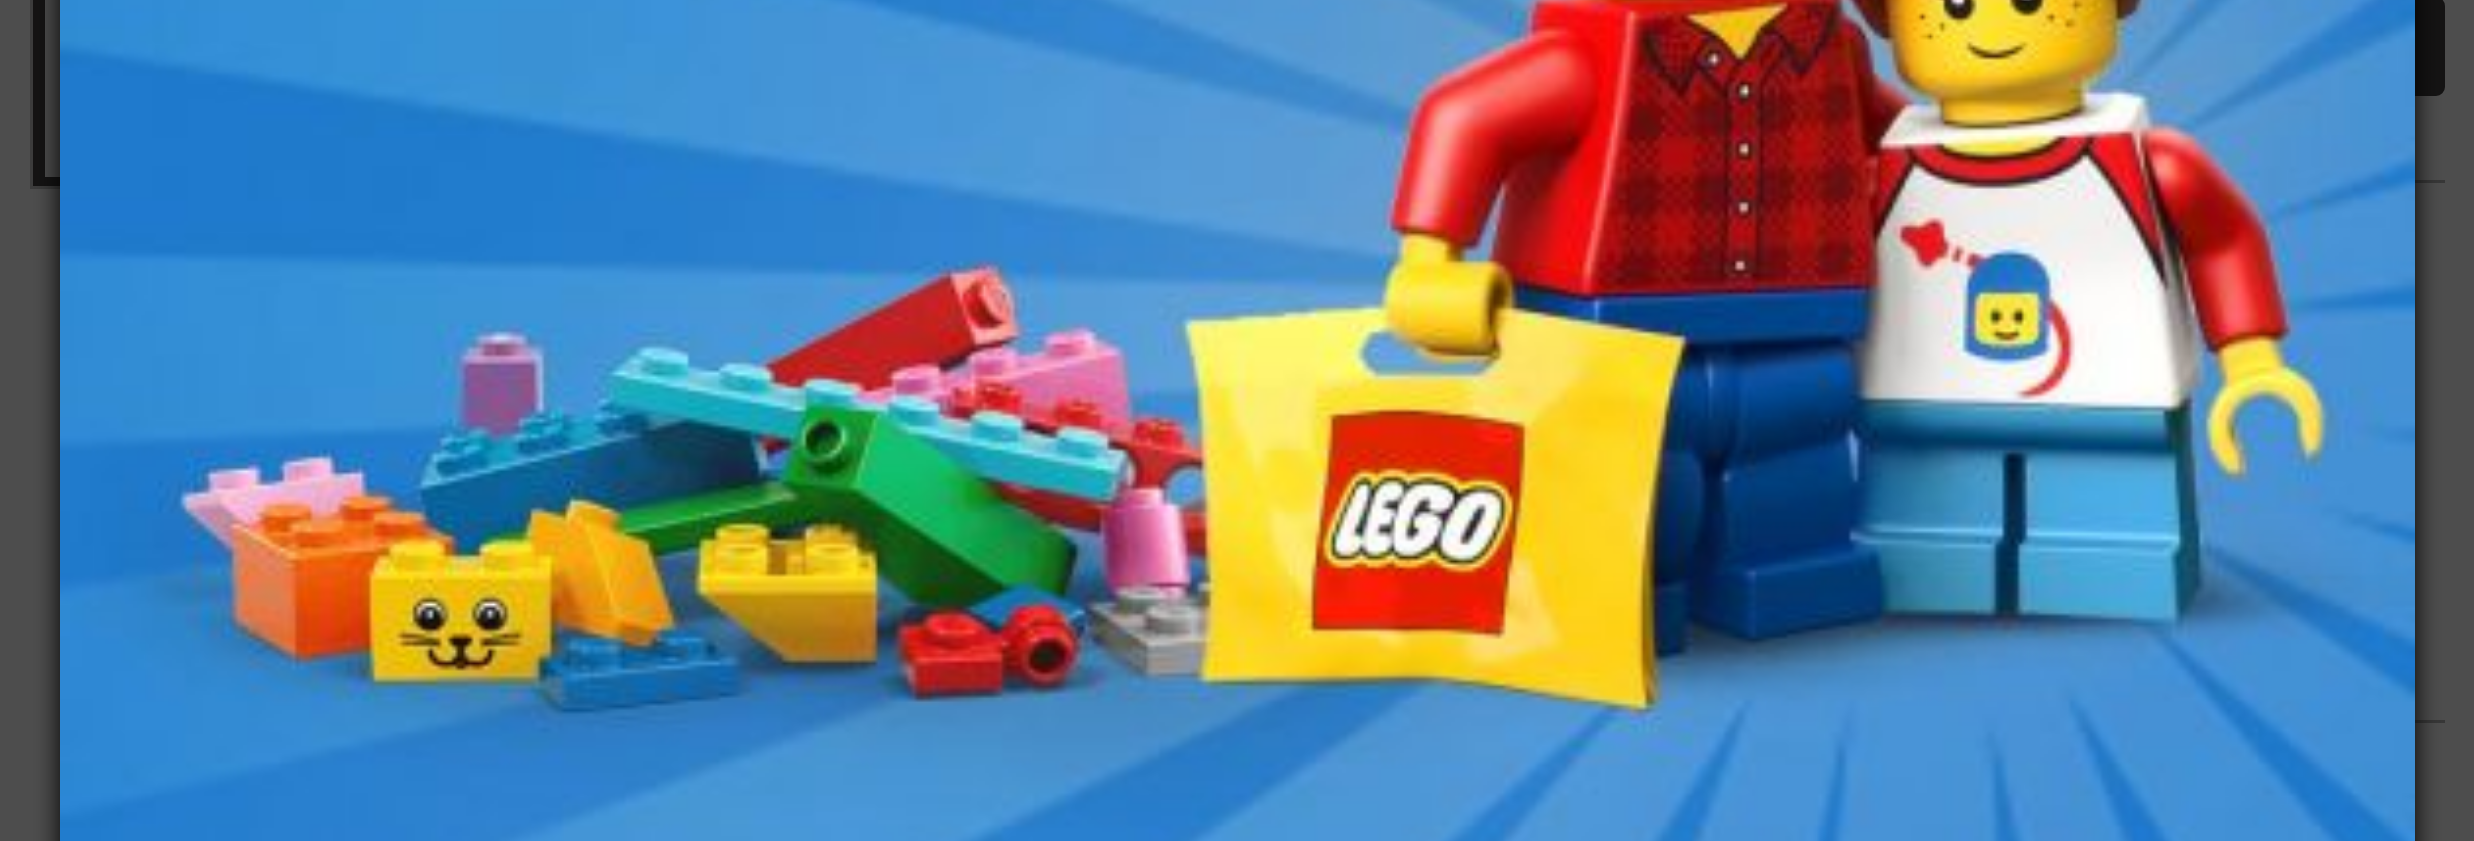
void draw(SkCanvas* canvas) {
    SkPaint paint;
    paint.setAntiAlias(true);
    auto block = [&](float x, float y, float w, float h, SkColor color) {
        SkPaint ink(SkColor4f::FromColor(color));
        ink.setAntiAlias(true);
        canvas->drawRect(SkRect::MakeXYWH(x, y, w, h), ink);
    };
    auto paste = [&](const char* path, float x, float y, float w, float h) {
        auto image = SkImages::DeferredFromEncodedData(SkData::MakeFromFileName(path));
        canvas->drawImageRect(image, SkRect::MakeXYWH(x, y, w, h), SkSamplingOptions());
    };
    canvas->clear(SkColorSetRGB(77, 77, 77));
    block(33, 0, 27, 186, SkColorSetRGB(20, 19, 19));
    paint.setStyle(SkPaint::kStroke_Style);
    paint.setStrokeWidth(3);
    paint.setColor(SkColorSetRGB(60, 60, 60));
    canvas->drawRect(SkRect::MakeXYWH(31.5f, -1.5f, 723, 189), paint);
    block(45, 0, 15, 177, SkColorSetRGB(77, 77, 77));
    paint.setStyle(SkPaint::kFill_Style);
    paint.setColor(SkColorSetRGB(20, 19, 19));
    canvas->drawRoundRect(SkRect::MakeXYWH(829.5f, -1.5f, 1614, 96), 7.5f, 7.5f, paint);
    paint.setStyle(SkPaint::kStroke_Style);
    canvas->drawRoundRect(SkRect::MakeXYWH(829.5f, -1.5f, 1614, 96), 7.5f, 7.5f, paint);
    block(2415, 180, 30, 3, SkColorSetRGB(55, 55, 55));
    block(2415, 720, 30, 3, SkColorSetRGB(55, 55, 55));
    paint.setStyle(SkPaint::kFill_Style);
    paint.setColor(SK_ColorBLACK);
    paint.setMaskFilter(SkMaskFilter::MakeBlur(kNormal_SkBlurStyle, 12));
    canvas->drawRect(SkRect::MakeXYWH(60, -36, 2355, 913), paint);
    paint.setMaskFilter(nullptr);
    paste("pic1.png", 60, 0, 2355, 841);
}
